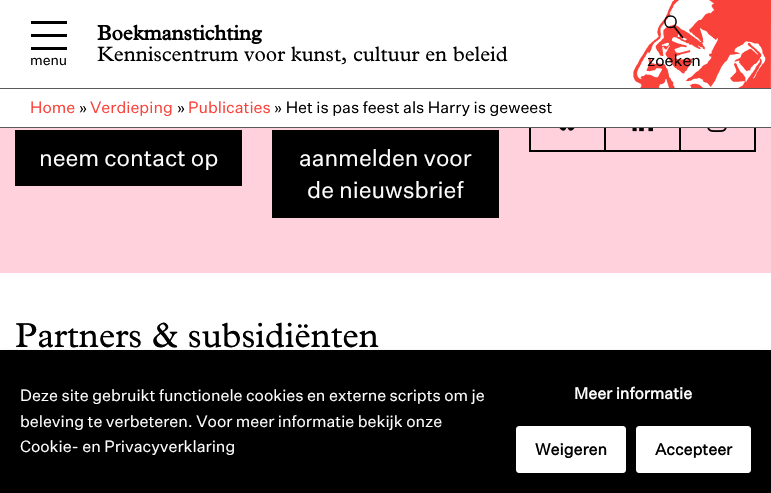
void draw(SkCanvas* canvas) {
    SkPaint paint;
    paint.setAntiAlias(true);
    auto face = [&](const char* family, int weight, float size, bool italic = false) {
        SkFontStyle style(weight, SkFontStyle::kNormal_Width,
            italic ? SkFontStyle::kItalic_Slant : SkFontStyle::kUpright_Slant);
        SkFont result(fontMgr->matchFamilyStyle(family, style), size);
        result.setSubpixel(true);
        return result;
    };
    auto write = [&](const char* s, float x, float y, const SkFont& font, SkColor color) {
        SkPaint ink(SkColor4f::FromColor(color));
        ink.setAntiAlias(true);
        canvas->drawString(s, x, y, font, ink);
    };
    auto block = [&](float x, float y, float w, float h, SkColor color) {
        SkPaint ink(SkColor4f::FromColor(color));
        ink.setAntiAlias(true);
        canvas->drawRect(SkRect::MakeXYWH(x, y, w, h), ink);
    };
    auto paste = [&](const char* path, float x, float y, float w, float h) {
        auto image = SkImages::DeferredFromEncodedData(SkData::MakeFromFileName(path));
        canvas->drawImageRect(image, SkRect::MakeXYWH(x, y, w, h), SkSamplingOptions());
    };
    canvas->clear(SkColorSetRGB(255, 209, 220));
    block(0, 0, 771, 88, SK_ColorWHITE);
    paste("pic1.png", 633, 0, 138, 88);
    block(0, 127, 771, 1, SkColorSetRGB(92, 89, 90));
    block(31, 21, 36, 3, SK_ColorBLACK);
    block(31, 34, 36, 3, SK_ColorBLACK);
    block(31, 47, 36, 3, SK_ColorBLACK);
    auto kFont1 = face("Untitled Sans", 400, 14);
    write("menu", 30, 65, kFont1, SK_ColorBLACK);
    auto kFont2 = face("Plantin", 700, 21);
    write("Boekmanstichting", 97, 40, kFont2, SK_ColorBLACK);
    auto kFont3 = face("Plantin", 500, 21);
    write("Kenniscentrum voor kunst, cultuur en beleid", 97, 61, kFont3, SK_ColorBLACK);
    paint.setStyle(SkPaint::kStroke_Style);
    paint.setStrokeWidth(1.5f);
    paint.setColor(SK_ColorBLACK);
    canvas->drawPath(SkPathBuilder().moveTo(674, 26.5f).lineTo(683, 38).moveTo(670.5f, 27.5f).cubicTo(678, 27.5f, 678, 16, 670.5f, 16).cubicTo(663, 16, 663, 27.5f, 670.5f, 27.5f).detach(), paint);
    auto kFont4 = face("Untitled Sans", 400, 16);
    write("zoeken", 647, 66, kFont4, SK_ColorBLACK);
    block(0, 89, 771, 38, SK_ColorWHITE);
    block(0, 88, 771, 1, SkColorSetRGB(92, 89, 90));
    write("Home", 30, 113, kFont4, SkColorSetRGB(249, 66, 58));
    write("»", 79, 113, kFont4, SK_ColorBLACK);
    write("Verdieping", 90, 113, kFont4, SkColorSetRGB(249, 66, 58));
    write("»", 177, 113, kFont4, SK_ColorBLACK);
    write("Publicaties", 188, 113, kFont4, SkColorSetRGB(249, 66, 58));
    write("» Het is pas feest als Harry is geweest", 274, 113, kFont4, SK_ColorBLACK);
    block(755, 128, 1, 24, SK_ColorBLACK);
    block(529, 150, 227, 2, SK_ColorBLACK);
    block(529, 128, 1, 24, SK_ColorBLACK);
    block(604, 128, 2, 22, SK_ColorBLACK);
    block(530, 128, 1, 22, SK_ColorBLACK);
    paste("pic2.png", 559, 128, 16, 3);
    block(679, 128, 2, 22, SK_ColorBLACK);
    paste("pic3.png", 632, 128, 21, 4);
    block(754, 128, 1, 22, SK_ColorBLACK);
    paste("pic4.png", 707, 128, 20, 4);
    block(15, 130, 227, 56, SK_ColorBLACK);
    auto kFont5 = face("Untitled Sans", 400, 23);
    write("neem contact op", 39, 166, kFont5, SK_ColorWHITE);
    block(272, 130, 227, 88, SK_ColorBLACK);
    write("aanmelden voor", 299, 166, kFont5, SK_ColorWHITE);
    write("de nieuwsbrief", 307, 198, kFont5, SK_ColorWHITE);
    block(0, 273, 771, 77, SK_ColorWHITE);
    auto kFont6 = face("Plantin", 500, 35);
    write("Partners & subsidiënten", 15, 347, kFont6, SK_ColorBLACK);
    paint.setStyle(SkPaint::kFill_Style);
    paint.setColor(SkColorSetARGB(51, 0, 0, 0));
    paint.setMaskFilter(SkMaskFilter::MakeBlur(kNormal_SkBlurStyle, 2));
    canvas->drawRoundRect(SkRect::MakeXYWH(0, 352, 771, 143), 5, 5, paint);
    paint.setMaskFilter(nullptr);
    block(0, 350, 771, 143, SK_ColorBLACK);
    write("Deze site gebruikt functionele cookies en externe scripts om je", 20, 401, kFont4, SK_ColorWHITE);
    write("beleving te verbeteren. Voor meer informatie bekijk onze", 20, 427, kFont4, SK_ColorWHITE);
    write("Cookie- en Privacyverklaring", 20, 452, kFont4, SK_ColorWHITE);
    auto kFont7 = face("Untitled Sans", 700, 16);
    write("Meer informatie", 574, 399, kFont7, SK_ColorWHITE);
    paint.setColor(SK_ColorWHITE);
    canvas->drawRoundRect(SkRect::MakeXYWH(516.5f, 426.5f, 109, 46), 2.5f, 2.5f, paint);
    paint.setStyle(SkPaint::kStroke_Style);
    paint.setStrokeWidth(1);
    canvas->drawRoundRect(SkRect::MakeXYWH(516.5f, 426.5f, 109, 46), 2.5f, 2.5f, paint);
    write("Weigeren", 535, 455, kFont7, SK_ColorBLACK);
    paint.setStyle(SkPaint::kFill_Style);
    canvas->drawRoundRect(SkRect::MakeXYWH(636.5f, 426.5f, 114, 46), 2.5f, 2.5f, paint);
    paint.setStyle(SkPaint::kStroke_Style);
    canvas->drawRoundRect(SkRect::MakeXYWH(636.5f, 426.5f, 114, 46), 2.5f, 2.5f, paint);
    write("Accepteer", 655, 455, kFont7, SK_ColorBLACK);
}
